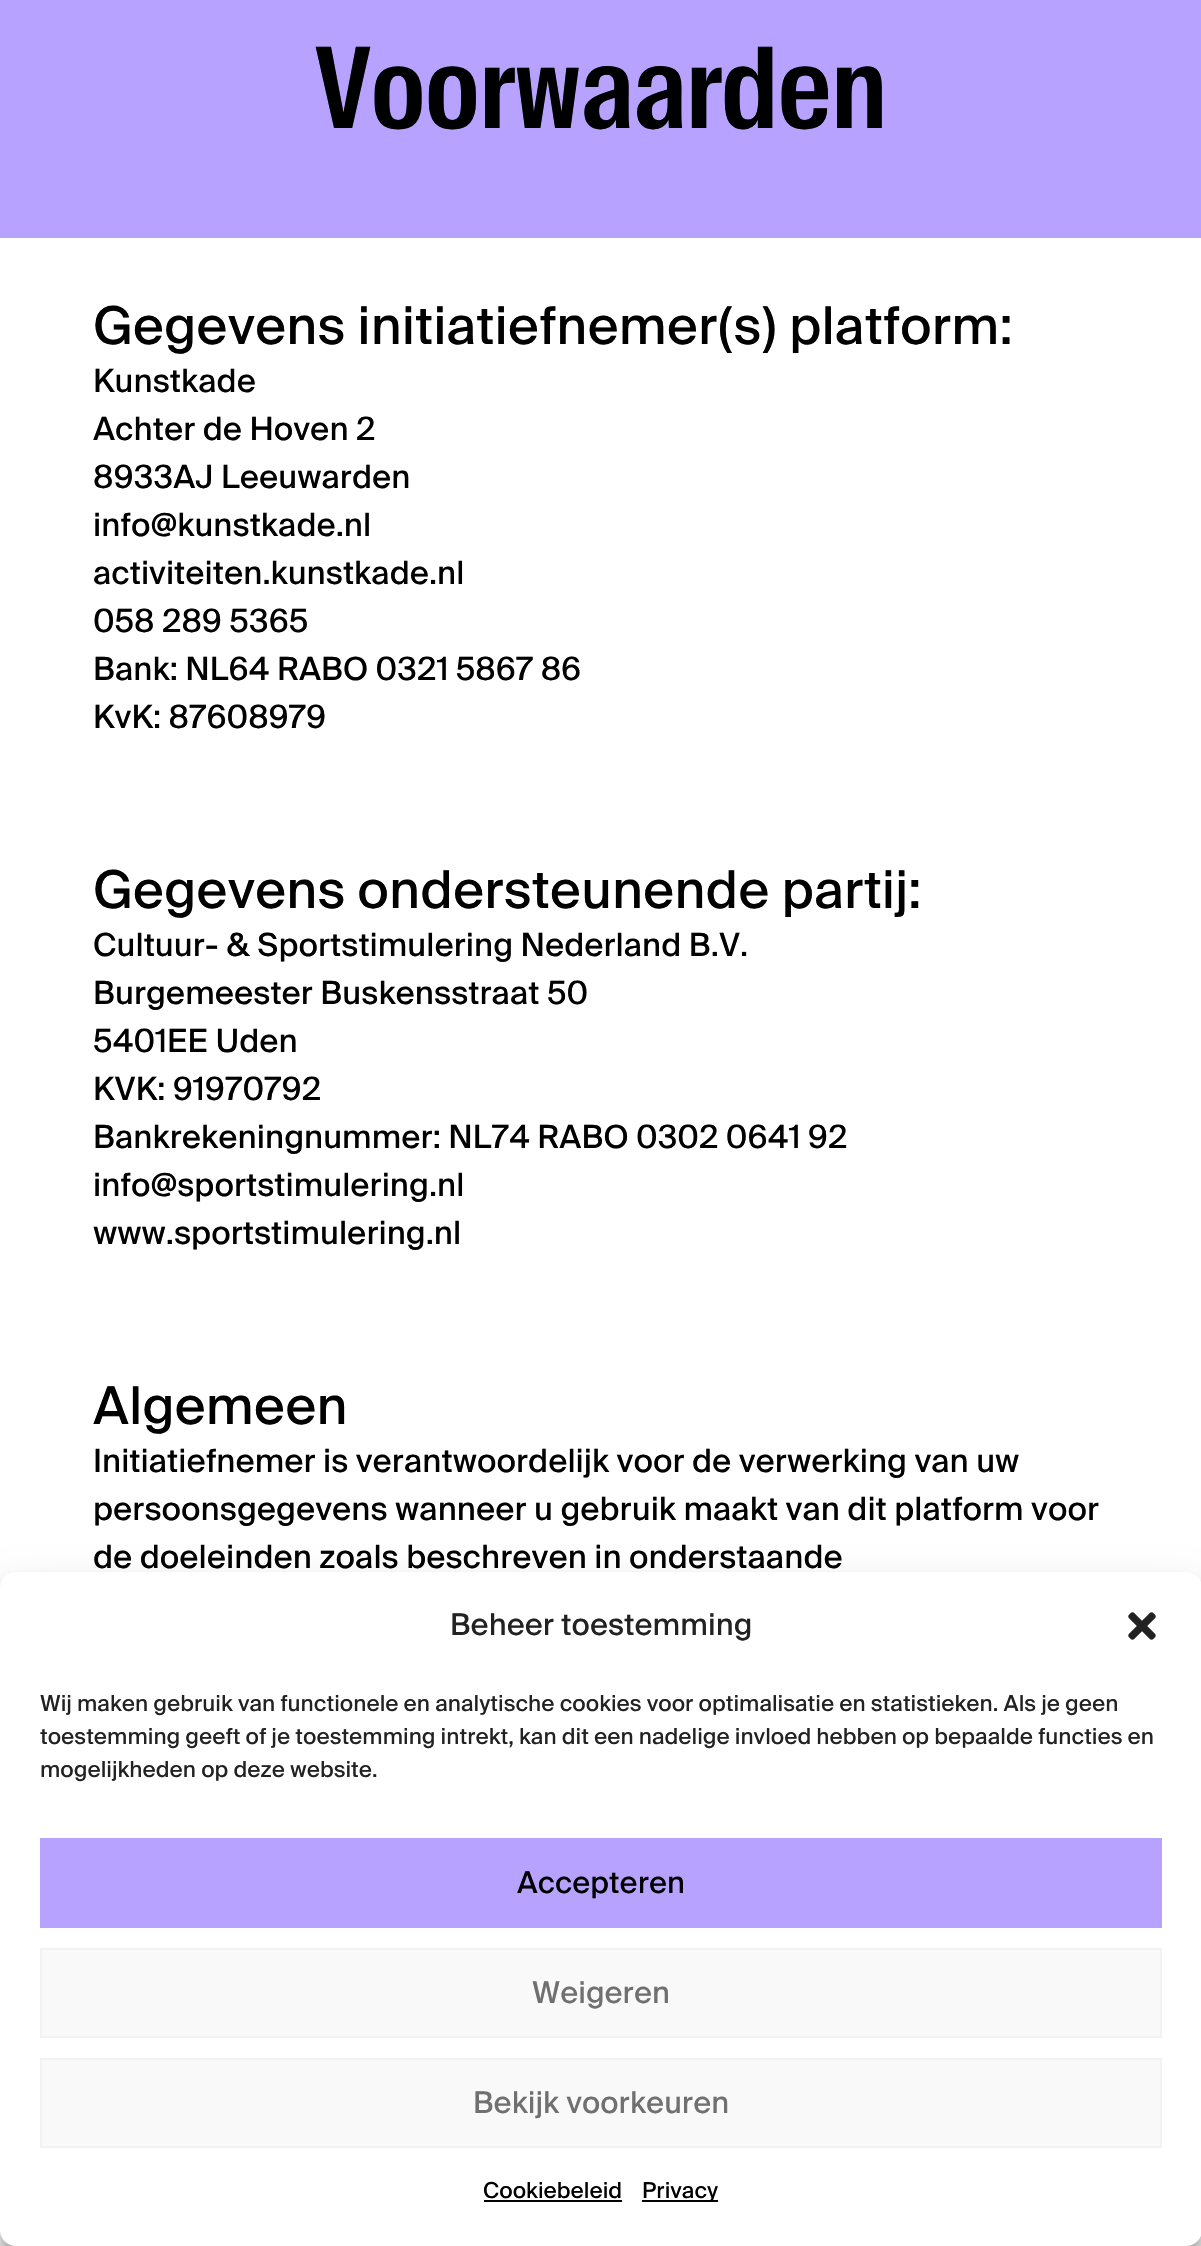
void draw(SkCanvas* canvas) {
    SkPaint paint;
    paint.setAntiAlias(true);
    auto face = [&](const char* family, int weight, float size, bool italic = false) {
        SkFontStyle style(weight, SkFontStyle::kNormal_Width,
            italic ? SkFontStyle::kItalic_Slant : SkFontStyle::kUpright_Slant);
        SkFont result(fontMgr->matchFamilyStyle(family, style), size);
        result.setSubpixel(true);
        return result;
    };
    auto write = [&](const char* s, float x, float y, const SkFont& font, SkColor color) {
        SkPaint ink(SkColor4f::FromColor(color));
        ink.setAntiAlias(true);
        canvas->drawString(s, x, y, font, ink);
    };
    auto block = [&](float x, float y, float w, float h, SkColor color) {
        SkPaint ink(SkColor4f::FromColor(color));
        ink.setAntiAlias(true);
        canvas->drawRect(SkRect::MakeXYWH(x, y, w, h), ink);
    };
    auto card = [&](float x, float y, float w, float h, float radius, SkColor color) {
        SkPaint ink(SkColor4f::FromColor(color));
        ink.setAntiAlias(true);
        canvas->drawRoundRect(SkRect::MakeXYWH(x, y, w, h), radius, radius, ink);
    };
    auto paste = [&](const char* path, float x, float y, float w, float h) {
        auto image = SkImages::DeferredFromEncodedData(SkData::MakeFromFileName(path));
        canvas->drawImageRect(image, SkRect::MakeXYWH(x, y, w, h), SkSamplingOptions());
    };
    canvas->clear(SK_ColorWHITE);
    block(0, 0, 1201, 238, SkColorSetRGB(184, 162, 255));
    auto kFont1 = face("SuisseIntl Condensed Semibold", 600, 112);
    write("Voorwaarden", 315, 128, kFont1, SK_ColorBLACK);
    auto kFont2 = face("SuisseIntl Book", 400, 52);
    write("Gegevens initiatiefnemer(s) platform:", 93, 344, kFont2, SK_ColorBLACK);
    auto kFont3 = face("SuisseIntl Book", 400, 32);
    write("Kunstkade", 93, 392, kFont3, SK_ColorBLACK);
    write("Achter de Hoven 2", 93, 440, kFont3, SK_ColorBLACK);
    write("8933AJ Leeuwarden", 93, 488, kFont3, SK_ColorBLACK);
    write("info@kunstkade.nl", 93, 536, kFont3, SK_ColorBLACK);
    write("activiteiten.kunstkade.nl", 93, 584, kFont3, SK_ColorBLACK);
    write("058 289 5365", 93, 632, kFont3, SK_ColorBLACK);
    write("Bank: NL64 RABO 0321 5867 86", 93, 680, kFont3, SK_ColorBLACK);
    write("KvK: 87608979", 93, 728, kFont3, SK_ColorBLACK);
    write("Gegevens ondersteunende partij:", 93, 908, kFont2, SK_ColorBLACK);
    write("Cultuur- & Sportstimulering Nederland B.V.", 93, 956, kFont3, SK_ColorBLACK);
    write("Burgemeester Buskensstraat 50", 93, 1004, kFont3, SK_ColorBLACK);
    write("5401EE Uden", 93, 1052, kFont3, SK_ColorBLACK);
    write("KVK: 91970792", 93, 1100, kFont3, SK_ColorBLACK);
    write("Bankrekeningnummer: NL74 RABO 0302 0641 92", 93, 1148, kFont3, SK_ColorBLACK);
    write("info@sportstimulering.nl", 93, 1196, kFont3, SK_ColorBLACK);
    write("www.sportstimulering.nl", 93, 1244, kFont3, SK_ColorBLACK);
    write("Algemeen", 93, 1424, kFont2, SK_ColorBLACK);
    write("Initiatiefnemer is verantwoordelijk voor de verwerking van uw", 93, 1472, kFont3, SK_ColorBLACK);
    write("persoonsgegevens wanneer u gebruik maakt van dit platform voor", 93, 1520, kFont3, SK_ColorBLACK);
    write("de doeleinden zoals beschreven in onderstaande", 93, 1568, kFont3, SK_ColorBLACK);
    paint.setColor(SkColorSetARGB(59, 0, 0, 0));
    paint.setMaskFilter(SkMaskFilter::MakeBlur(kNormal_SkBlurStyle, 6));
    canvas->drawRoundRect(SkRect::MakeXYWH(0, 1584, 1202, 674), 16, 16, paint);
    paint.setMaskFilter(nullptr);
    paint.setColor(SkColorSetARGB(48, 0, 0, 0));
    paint.setMaskFilter(SkMaskFilter::MakeBlur(kNormal_SkBlurStyle, 20));
    canvas->drawRoundRect(SkRect::MakeXYWH(0, 1592, 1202, 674), 16, 16, paint);
    paint.setMaskFilter(nullptr);
    card(0, 1572, 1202, 674, 16, SK_ColorWHITE);
    auto kFont4 = face("SuisseIntl Book", 400, 30);
    write("Beheer toestemming", 450, 1635, kFont4, SkColorSetRGB(34, 34, 34));
    paste("pic1.png", 1128, 1612, 28, 28);
    auto kFont5 = face("SuisseIntl Book", 400, 22);
    write("Wij maken gebruik van functionele en analytische cookies voor optimalisatie en statistieken. Als je geen", 40, 1711, kFont5, SkColorSetRGB(34, 34, 34));
    write("toestemming geeft of je toestemming intrekt, kan dit een nadelige invloed hebben op bepaalde functies en", 40, 1744, kFont5, SkColorSetRGB(34, 34, 34));
    write("mogelijkheden op deze website.", 40, 1777, kFont5, SkColorSetRGB(34, 34, 34));
    block(40, 1838, 1122, 90, SkColorSetRGB(184, 162, 255));
    write("Accepteren", 517, 1893, kFont4, SK_ColorBLACK);
    paint.setColor(SkColorSetRGB(249, 249, 249));
    canvas->drawRect(SkRect::MakeXYWH(41, 1949, 1120, 88), paint);
    paint.setStyle(SkPaint::kStroke_Style);
    paint.setStrokeWidth(2);
    paint.setColor(SkColorSetRGB(242, 242, 242));
    canvas->drawRect(SkRect::MakeXYWH(41, 1949, 1120, 88), paint);
    write("Weigeren", 532, 2003, kFont4, SkColorSetRGB(113, 112, 112));
    paint.setStyle(SkPaint::kFill_Style);
    paint.setColor(SkColorSetRGB(249, 249, 249));
    canvas->drawRect(SkRect::MakeXYWH(41, 2059, 1120, 88), paint);
    paint.setStyle(SkPaint::kStroke_Style);
    paint.setColor(SkColorSetRGB(242, 242, 242));
    canvas->drawRect(SkRect::MakeXYWH(41, 2059, 1120, 88), paint);
    write("Bekijk voorkeuren", 473, 2113, kFont4, SkColorSetRGB(113, 112, 112));
    write("Cookiebeleid", 483, 2198, kFont5, SK_ColorBLACK);
    block(484, 2200, 138, 2, SkColorSetRGB(2, 2, 2));
    block(642, 2200, 76, 2, SkColorSetRGB(2, 2, 2));
    write("Privacy", 642, 2198, kFont5, SK_ColorBLACK);
}
